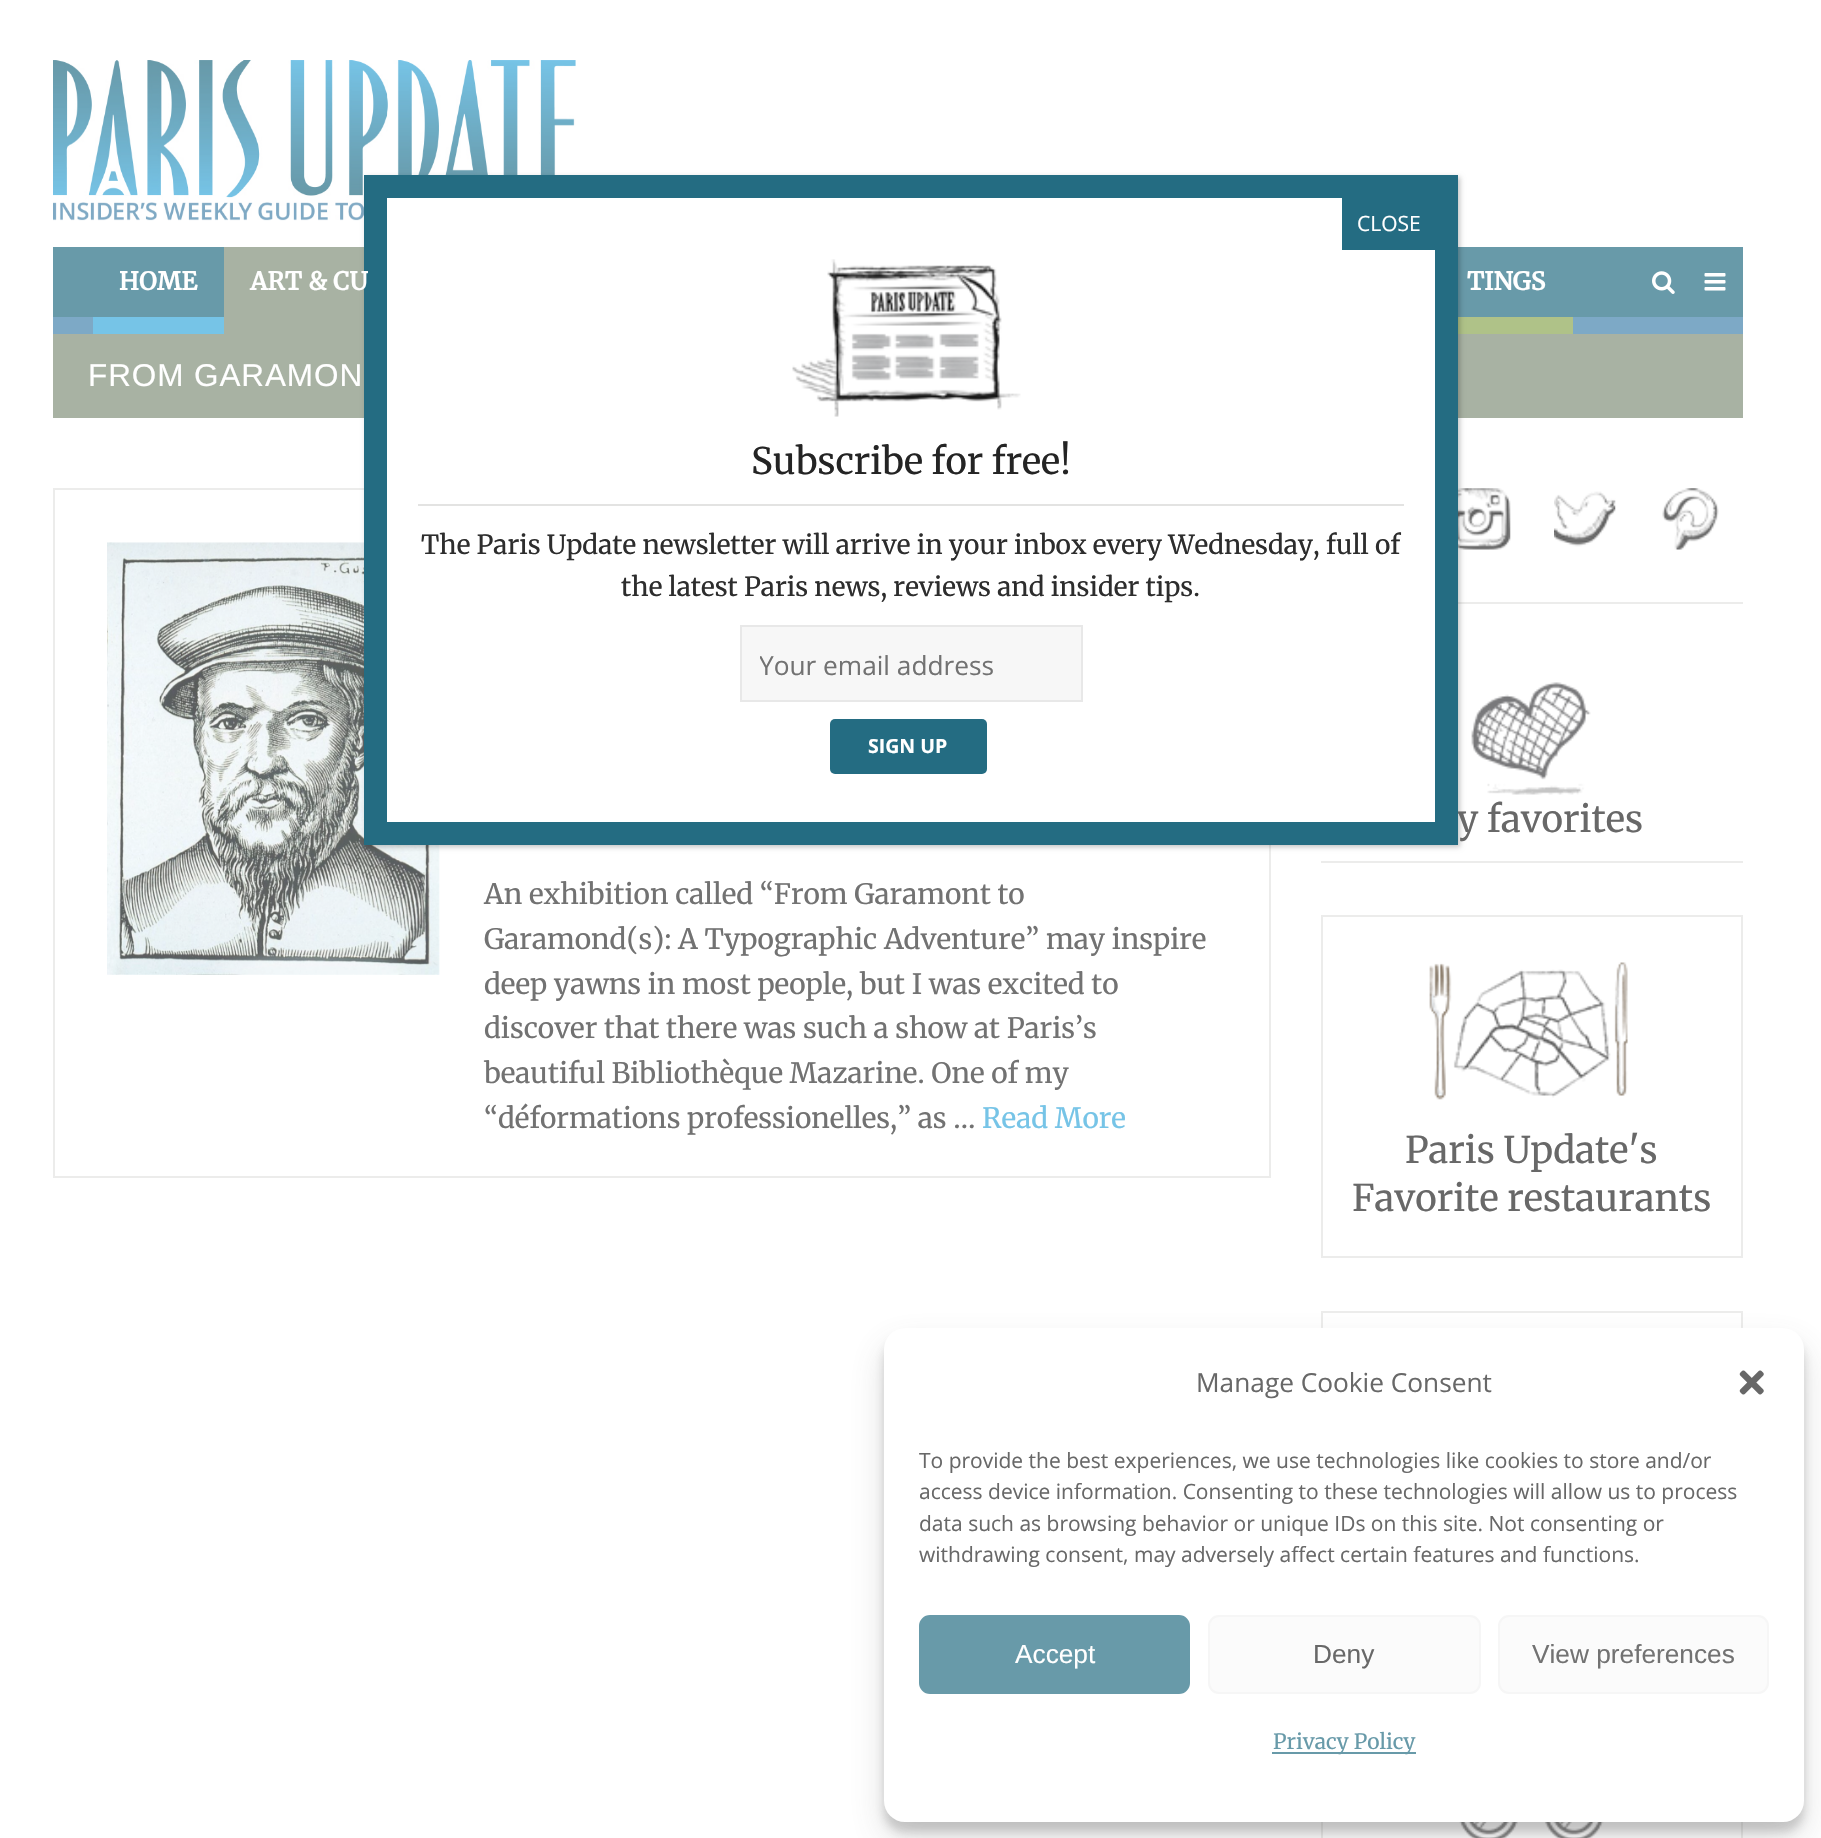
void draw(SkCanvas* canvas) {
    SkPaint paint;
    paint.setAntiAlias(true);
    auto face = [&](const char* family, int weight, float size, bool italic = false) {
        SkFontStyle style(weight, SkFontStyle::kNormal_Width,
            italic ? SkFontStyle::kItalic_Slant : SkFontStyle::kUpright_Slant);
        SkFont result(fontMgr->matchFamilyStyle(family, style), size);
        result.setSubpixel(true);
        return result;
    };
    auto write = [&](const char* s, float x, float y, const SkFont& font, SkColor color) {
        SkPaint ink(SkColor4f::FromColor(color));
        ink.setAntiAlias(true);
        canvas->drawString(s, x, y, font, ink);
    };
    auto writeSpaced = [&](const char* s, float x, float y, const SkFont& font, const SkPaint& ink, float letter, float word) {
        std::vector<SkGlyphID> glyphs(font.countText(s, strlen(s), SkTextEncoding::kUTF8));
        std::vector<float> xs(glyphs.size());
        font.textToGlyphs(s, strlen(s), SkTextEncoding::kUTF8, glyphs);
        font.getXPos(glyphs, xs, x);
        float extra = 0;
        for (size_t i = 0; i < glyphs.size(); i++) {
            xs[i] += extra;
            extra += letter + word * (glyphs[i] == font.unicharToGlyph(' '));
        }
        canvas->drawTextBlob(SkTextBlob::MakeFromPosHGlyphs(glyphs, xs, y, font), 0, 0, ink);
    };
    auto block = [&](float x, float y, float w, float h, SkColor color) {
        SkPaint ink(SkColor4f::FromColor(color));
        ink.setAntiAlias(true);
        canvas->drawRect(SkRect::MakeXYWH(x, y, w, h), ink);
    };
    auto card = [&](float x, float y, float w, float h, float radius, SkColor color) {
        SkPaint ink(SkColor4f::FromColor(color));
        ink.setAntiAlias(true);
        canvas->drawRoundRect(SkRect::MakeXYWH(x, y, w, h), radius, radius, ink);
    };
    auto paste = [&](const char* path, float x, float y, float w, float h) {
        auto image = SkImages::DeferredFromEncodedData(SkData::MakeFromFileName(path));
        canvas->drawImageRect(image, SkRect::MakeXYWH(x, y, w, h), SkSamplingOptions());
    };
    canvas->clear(SK_ColorWHITE);
    paste("pic2.png", 53, 60, 523, 161);
    block(53, 247, 1690, 70, SkColorSetRGB(104, 154, 169));
    block(53, 317, 1690, 17, SkColorSetRGB(125, 169, 198));
    block(224, 247, 140, 87, SkColorSetRGB(168, 178, 163));
    block(1458, 317, 115, 17, SkColorSetRGB(175, 194, 136));
    block(53, 334, 1690, 84, SkColorSetRGB(168, 178, 163));
    paint.setStyle(SkPaint::kStroke_Style);
    paint.setStrokeWidth(2);
    paint.setColor(SkColorSetRGB(236, 236, 235));
    canvas->drawRect(SkRect::MakeXYWH(54, 489, 1216, 688), paint);
    paste("pic5.png", 107, 542, 333, 433);
    paste("pic6.png", 1458, 488, 53, 62);
    block(1458, 602, 285, 2, SkColorSetRGB(236, 236, 235));
    paint.setStyle(SkPaint::kFill_Style);
    paint.setColor(SkColorSetARGB(59, 2, 2, 2));
    paint.setMaskFilter(SkMaskFilter::MakeBlur(kNormal_SkBlurStyle, 2.5f));
    canvas->drawRect(SkRect::MakeXYWH(366, 177, 1094, 670), paint);
    paint.setMaskFilter(nullptr);
    auto kFont1 = face("Merriweather", 300, 36.75f);
    write("y favorites", 1457, 832, kFont1, SkColorSetRGB(104, 104, 104));
    paint.setColor(SK_ColorWHITE);
    canvas->drawRect(SkRect::MakeXYWH(375.5f, 186.5f, 1071, 647), paint);
    paint.setStyle(SkPaint::kStroke_Style);
    paint.setStrokeWidth(23);
    paint.setColor(SkColorSetRGB(36, 108, 130));
    canvas->drawRect(SkRect::MakeXYWH(375.5f, 186.5f, 1071, 647), paint);
    block(1342, 198, 93, 52, SkColorSetRGB(36, 108, 130));
    auto kFont2 = face("Open Sans", 400, 21);
    write("CLOSE", 1357, 231, kFont2, SK_ColorWHITE);
    paste("pic1.png", 792, 259, 229, 158);
    block(418, 504, 986, 2, SkColorSetRGB(227, 227, 226));
    auto kFont3 = face("Merriweather", 300, 36.5f);
    write("Subscribe for free!", 751, 474, kFont3, SkColorSetRGB(36, 36, 36));
    auto kFont4 = face("Merriweather", 300, 26.25f);
    write("The Paris Update newsletter will arrive in your inbox every Wednesday, full of", 421, 554, kFont4, SkColorSetRGB(45, 45, 45));
    write("the latest Paris news, reviews and insider tips.", 621, 596, kFont4, SkColorSetRGB(45, 45, 45));
    paint.setStyle(SkPaint::kFill_Style);
    paint.setColor(SkColorSetRGB(247, 247, 247));
    canvas->drawRect(SkRect::MakeXYWH(741, 626, 341, 75), paint);
    paint.setStyle(SkPaint::kStroke_Style);
    paint.setStrokeWidth(2);
    paint.setColor(SkColorSetRGB(232, 232, 232));
    canvas->drawRect(SkRect::MakeXYWH(741, 626, 341, 75), paint);
    canvas->save();
    canvas->clipRect(SkRect::MakeXYWH(760, 646, 304, 35));
    auto kFont5 = face("Open Sans", 400, 26.25f);
    write("Your email address", 759, 675, kFont5, SkColorSetRGB(114, 114, 114));
    canvas->restore();
    card(830, 719, 157, 55, 5, SkColorSetRGB(36, 108, 130));
    auto kFont6 = face("Open Sans", 700, 19.5f);
    write("SIGN UP", 868, 753, kFont6, SK_ColorWHITE);
    block(93, 317, 131, 17, SkColorSetRGB(118, 196, 231));
    auto kFont7 = face("Merriweather", 700, 24.5f);
    paint.setStyle(SkPaint::kFill_Style);
    paint.setColor(SK_ColorWHITE);
    writeSpaced("HOME", 119, 290, kFont7, paint, 0.25f, 0);
    writeSpaced("ART & CU", 250, 290, kFont7, paint, 0.25f, 0);
    writeSpaced("TINGS", 1467, 290, kFont7, paint, 0.25f, 0);
    paste("pic3.png", 1652, 271, 23, 23);
    paste("pic4.png", 1704, 273, 22, 18);
    auto kFont8 = face("Liberation Sans", 400, 31.5f);
    writeSpaced("FROM GARAMON", 88, 386, kFont8, paint, 0.9f, 0);
    auto kFont9 = face("Merriweather", 300, 28);
    write("An exhibition called “From Garamont to", 484, 904, kFont9, SkColorSetRGB(114, 114, 114));
    write("Garamond(s): A Typographic Adventure” may inspire", 484, 949, kFont9, SkColorSetRGB(114, 114, 114));
    write("deep yawns in most people, but I was excited to", 484, 994, kFont9, SkColorSetRGB(114, 114, 114));
    write("discover that there was such a show at Paris’s", 484, 1038, kFont9, SkColorSetRGB(114, 114, 114));
    write("beautiful Bibliothèque Mazarine. One of my", 484, 1083, kFont9, SkColorSetRGB(114, 114, 114));
    write("“déformations professionelles,” as …", 484, 1128, kFont9, SkColorSetRGB(114, 114, 114));
    write("Read More", 982, 1128, kFont9, SkColorSetRGB(118, 196, 231));
    paste("pic7.png", 1554, 491, 62, 56);
    paste("pic8.png", 1662, 488, 57, 62);
    paste("pic9.png", 1471, 682, 120, 113);
    block(1321, 861, 422, 2, SkColorSetRGB(236, 236, 235));
    paste("pic10.png", 1429, 962, 199, 138);
    paint.setStyle(SkPaint::kStroke_Style);
    paint.setColor(SkColorSetRGB(236, 236, 235));
    canvas->drawRect(SkRect::MakeXYWH(1322, 916, 420, 341), paint);
    write("Paris Update's", 1405, 1163, kFont1, SkColorSetRGB(104, 104, 104));
    write("Favorite restaurants", 1352, 1211, kFont1, SkColorSetRGB(104, 104, 104));
    canvas->drawRect(SkRect::MakeXYWH(1322, 1312, 420, 295), paint);
    paste("pic11.png", 1459, 1822, 145, 16);
    canvas->drawRect(SkRect::MakeXYWH(1322, 1662, 420, 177), paint);
    paint.setStyle(SkPaint::kFill_Style);
    paint.setColor(SkColorSetARGB(59, 79, 79, 79));
    paint.setMaskFilter(SkMaskFilter::MakeBlur(kNormal_SkBlurStyle, 5));
    canvas->drawRoundRect(SkRect::MakeXYWH(884, 1339, 920, 493), 21, 21, paint);
    paint.setMaskFilter(nullptr);
    paint.setColor(SkColorSetARGB(48, 79, 79, 79));
    paint.setMaskFilter(SkMaskFilter::MakeBlur(kNormal_SkBlurStyle, 17.5f));
    canvas->drawRoundRect(SkRect::MakeXYWH(884, 1346, 920, 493), 21, 21, paint);
    paint.setMaskFilter(nullptr);
    card(884, 1328, 920, 494, 21, SK_ColorWHITE);
    write("Manage Cookie Consent", 1196, 1392, kFont5, SkColorSetRGB(104, 104, 104));
    paste("pic12.png", 1739, 1370, 25, 25);
    write("To provide the best experiences, we use technologies like cookies to store and/or", 919, 1468, kFont2, SkColorSetRGB(104, 104, 104));
    write("access device information. Consenting to these technologies will allow us to process", 919, 1499, kFont2, SkColorSetRGB(104, 104, 104));
    write("data such as browsing behavior or unique IDs on this site. Not consenting or", 919, 1531, kFont2, SkColorSetRGB(104, 104, 104));
    write("withdrawing consent, may adversely affect certain features and functions.", 919, 1562, kFont2, SkColorSetRGB(104, 104, 104));
    paint.setColor(SkColorSetRGB(104, 154, 169));
    canvas->drawRoundRect(SkRect::MakeXYWH(920, 1616, 269, 77), 10, 10, paint);
    paint.setStyle(SkPaint::kStroke_Style);
    canvas->drawRoundRect(SkRect::MakeXYWH(920, 1616, 269, 77), 10, 10, paint);
    auto kFont10 = face("Liberation Sans", 400, 26.25f);
    write("Accept", 1015, 1663, kFont10, SK_ColorWHITE);
    paint.setStyle(SkPaint::kFill_Style);
    paint.setColor(SkColorSetRGB(251, 251, 251));
    canvas->drawRoundRect(SkRect::MakeXYWH(1209, 1616, 271, 77), 10, 10, paint);
    paint.setStyle(SkPaint::kStroke_Style);
    paint.setColor(SkColorSetRGB(246, 246, 246));
    canvas->drawRoundRect(SkRect::MakeXYWH(1209, 1616, 271, 77), 10, 10, paint);
    write("Deny", 1313, 1663, kFont10, SkColorSetRGB(104, 104, 104));
    paint.setStyle(SkPaint::kFill_Style);
    paint.setColor(SkColorSetRGB(251, 251, 251));
    canvas->drawRoundRect(SkRect::MakeXYWH(1499, 1616, 269, 77), 10, 10, paint);
    paint.setStyle(SkPaint::kStroke_Style);
    paint.setColor(SkColorSetRGB(246, 246, 246));
    canvas->drawRoundRect(SkRect::MakeXYWH(1499, 1616, 269, 77), 10, 10, paint);
    write("View preferences", 1532, 1663, kFont10, SkColorSetRGB(114, 114, 114));
    block(1272, 1752, 144, 2, SkColorSetRGB(104, 154, 169));
    auto kFont11 = face("Merriweather", 300, 21);
    write("Privacy Policy", 1273, 1749, kFont11, SkColorSetRGB(104, 154, 169));
}
